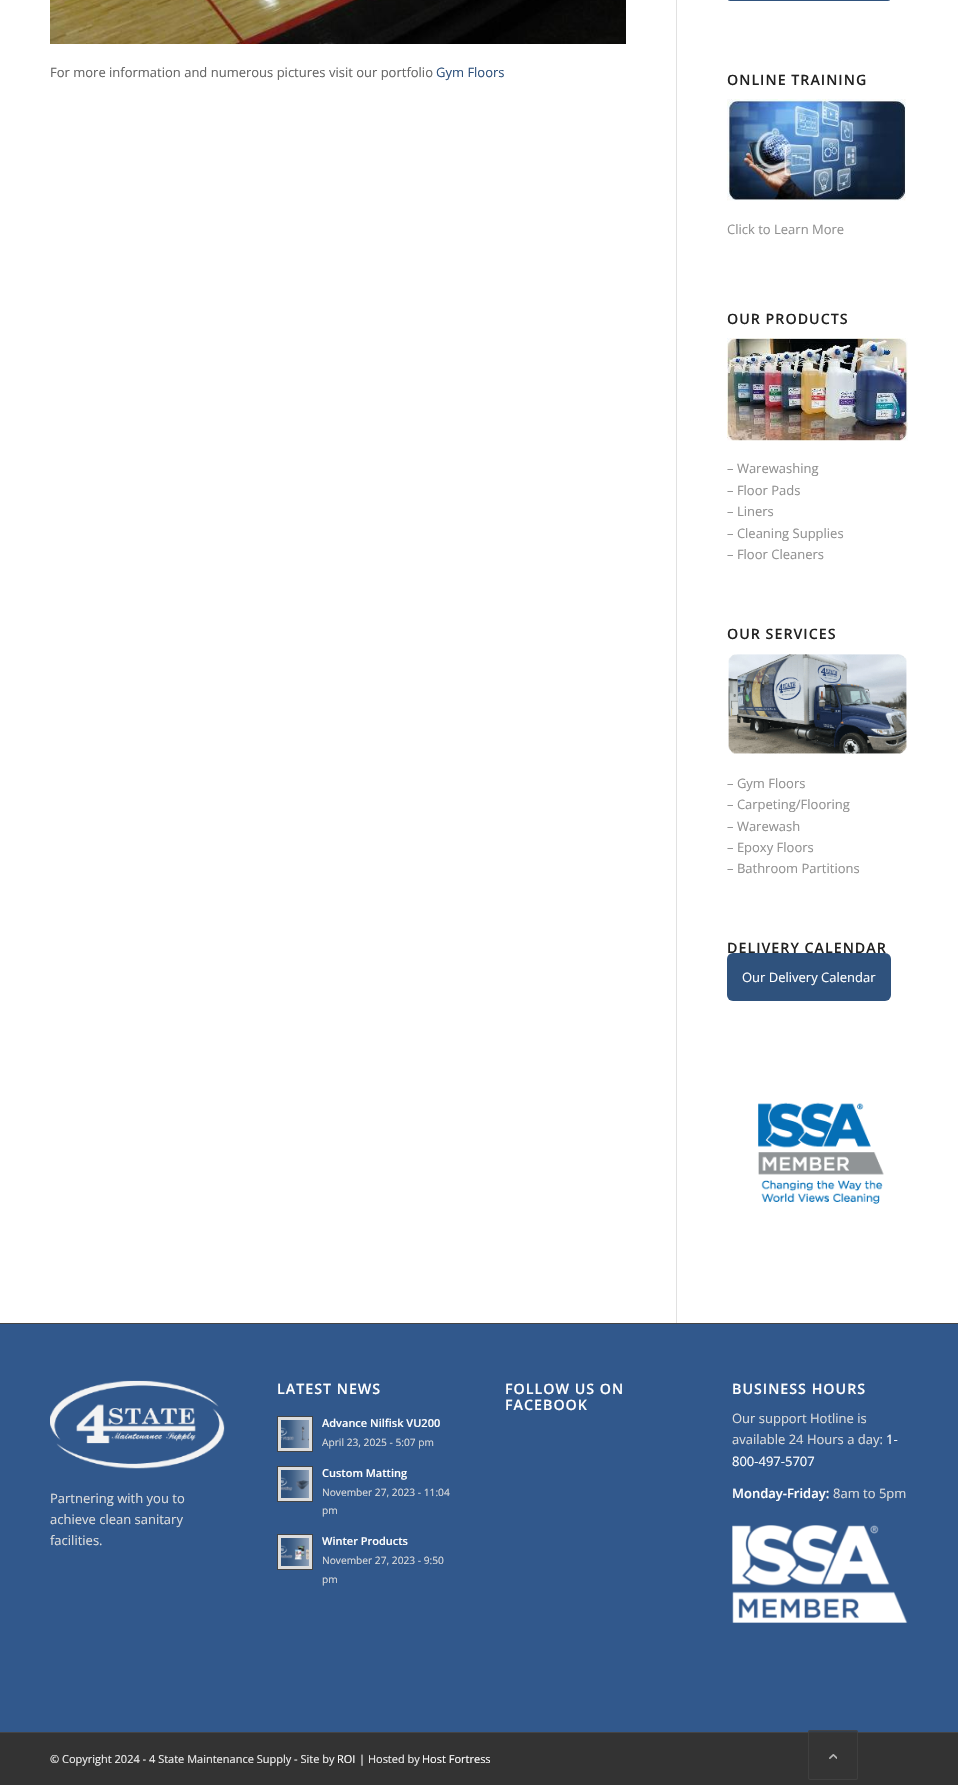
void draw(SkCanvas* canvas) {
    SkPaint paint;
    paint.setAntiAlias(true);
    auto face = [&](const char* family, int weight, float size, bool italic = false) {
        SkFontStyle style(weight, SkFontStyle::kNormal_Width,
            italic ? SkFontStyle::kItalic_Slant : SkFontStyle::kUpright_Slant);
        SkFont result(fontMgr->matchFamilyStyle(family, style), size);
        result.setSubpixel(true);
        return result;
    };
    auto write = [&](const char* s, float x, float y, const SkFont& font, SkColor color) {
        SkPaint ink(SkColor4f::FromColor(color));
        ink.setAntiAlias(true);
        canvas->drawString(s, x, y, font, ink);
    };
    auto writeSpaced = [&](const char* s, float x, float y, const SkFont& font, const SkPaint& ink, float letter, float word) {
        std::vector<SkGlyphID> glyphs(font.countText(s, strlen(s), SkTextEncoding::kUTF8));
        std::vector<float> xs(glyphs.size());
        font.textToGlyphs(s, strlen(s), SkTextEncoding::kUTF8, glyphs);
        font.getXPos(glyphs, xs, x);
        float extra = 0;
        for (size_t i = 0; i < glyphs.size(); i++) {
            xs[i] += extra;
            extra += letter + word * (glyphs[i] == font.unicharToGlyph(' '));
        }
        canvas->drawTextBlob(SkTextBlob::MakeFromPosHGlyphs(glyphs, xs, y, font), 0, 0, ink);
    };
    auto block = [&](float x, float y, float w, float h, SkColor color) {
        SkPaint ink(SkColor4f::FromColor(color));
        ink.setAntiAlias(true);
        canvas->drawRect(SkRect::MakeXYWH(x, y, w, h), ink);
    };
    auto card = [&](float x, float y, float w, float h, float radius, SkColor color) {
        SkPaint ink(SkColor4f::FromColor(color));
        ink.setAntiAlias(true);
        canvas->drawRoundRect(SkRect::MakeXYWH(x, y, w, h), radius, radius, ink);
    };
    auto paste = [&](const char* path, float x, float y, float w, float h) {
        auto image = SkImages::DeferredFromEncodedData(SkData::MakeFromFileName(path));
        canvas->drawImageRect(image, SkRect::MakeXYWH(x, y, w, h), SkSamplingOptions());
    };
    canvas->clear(SK_ColorWHITE);
    paste("pic1.png", 50, 0, 576, 44);
    auto kFont1 = face("Open Sans", 400, 13);
    write("For more information and numerous pictures visit our portfolio", 50, 77, kFont1, SkColorSetRGB(102, 102, 102));
    write("Gym Floors", 436, 77, kFont1, SkColorSetRGB(47, 82, 125));
    block(676, 0, 1, 1323, SkColorSetRGB(225, 225, 225));
    card(727, -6, 164, 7, 6, SkColorSetRGB(47, 82, 125));
    auto kFont2 = face("Open Sans", 600, 14.25f);
    paint.setColor(SkColorSetRGB(34, 34, 34));
    writeSpaced("ONLINE TRAINING", 727, 85, kFont2, paint, 1, 0);
    paste("pic2.png", 727, 99, 179, 102);
    write("Click to Learn More", 727, 234, kFont1, SkColorSetRGB(145, 145, 145));
    writeSpaced("OUR PRODUCTS", 727, 324, kFont2, paint, 1, 0);
    paste("pic3.png", 727, 338, 181, 103);
    write("– Warewashing", 727, 473, kFont1, SkColorSetRGB(145, 145, 145));
    write("– Floor Pads", 727, 495, kFont1, SkColorSetRGB(145, 145, 145));
    write("– Liners", 727, 516, kFont1, SkColorSetRGB(145, 145, 145));
    write("– Cleaning Supplies", 727, 538, kFont1, SkColorSetRGB(145, 145, 145));
    write("– Floor Cleaners", 727, 559, kFont1, SkColorSetRGB(145, 145, 145));
    writeSpaced("OUR SERVICES", 727, 639, kFont2, paint, 1, 0);
    paste("pic4.png", 728, 654, 179, 100);
    write("– Gym Floors", 727, 788, kFont1, SkColorSetRGB(145, 145, 145));
    write("– Carpeting/Flooring", 727, 809, kFont1, SkColorSetRGB(145, 145, 145));
    write("– Warewash", 727, 831, kFont1, SkColorSetRGB(145, 145, 145));
    write("– Epoxy Floors", 727, 852, kFont1, SkColorSetRGB(145, 145, 145));
    write("– Bathroom Partitions", 727, 873, kFont1, SkColorSetRGB(145, 145, 145));
    writeSpaced("DELIVERY CALENDAR", 727, 953, kFont2, paint, 1, 0);
    card(727, 953, 164, 48, 6, SkColorSetRGB(47, 82, 125));
    write("Our Delivery Calendar", 742, 982, kFont1, SK_ColorWHITE);
    paste("pic5.png", 758, 1102, 126, 102);
    block(0, 1324, 958, 408, SkColorSetRGB(49, 88, 140));
    block(0, 1323, 958, 1, SkColorSetRGB(68, 68, 68));
    paint.setColor(SK_ColorWHITE);
    writeSpaced("LATEST NEWS", 277, 1394, kFont2, paint, 1, 0);
    paint.setColor(SkColorSetRGB(221, 221, 221));
    canvas->drawRect(SkRect::MakeXYWH(277.5f, 1416.5f, 35, 35), paint);
    paint.setStyle(SkPaint::kStroke_Style);
    paint.setStrokeWidth(1);
    paint.setColor(SkColorSetRGB(68, 68, 68));
    canvas->drawRect(SkRect::MakeXYWH(277.5f, 1416.5f, 35, 35), paint);
    paste("pic6.png", 281, 1420, 28, 28);
    auto kFont3 = face("Open Sans", 600, 11);
    write("Advance Nilfisk VU200", 322, 1427, kFont3, SK_ColorWHITE);
    auto kFont4 = face("Open Sans", 400, 10.2f);
    write("April 23, 2025 - 5:07 pm", 322, 1446, kFont4, SkColorSetRGB(221, 221, 221));
    paint.setStyle(SkPaint::kFill_Style);
    paint.setColor(SkColorSetRGB(221, 221, 221));
    canvas->drawRect(SkRect::MakeXYWH(277.5f, 1466.5f, 35, 35), paint);
    paint.setStyle(SkPaint::kStroke_Style);
    paint.setColor(SkColorSetRGB(68, 68, 68));
    canvas->drawRect(SkRect::MakeXYWH(277.5f, 1466.5f, 35, 35), paint);
    paste("pic7.png", 281, 1470, 28, 28);
    write("Custom Matting", 322, 1477, kFont3, SK_ColorWHITE);
    write("November 27, 2023 - 11:04", 322, 1496, kFont4, SkColorSetRGB(221, 221, 221));
    write("pm", 322, 1514, kFont4, SkColorSetRGB(221, 221, 221));
    paint.setStyle(SkPaint::kFill_Style);
    paint.setColor(SkColorSetRGB(221, 221, 221));
    canvas->drawRect(SkRect::MakeXYWH(277.5f, 1534.5f, 35, 35), paint);
    paint.setStyle(SkPaint::kStroke_Style);
    paint.setColor(SkColorSetRGB(68, 68, 68));
    canvas->drawRect(SkRect::MakeXYWH(277.5f, 1534.5f, 35, 35), paint);
    paste("pic8.png", 281, 1538, 28, 28);
    write("Winter Products", 322, 1545, kFont3, SK_ColorWHITE);
    write("November 27, 2023 - 9:50", 322, 1564, kFont4, SkColorSetRGB(221, 221, 221));
    write("pm", 322, 1583, kFont4, SkColorSetRGB(221, 221, 221));
    paint.setStyle(SkPaint::kFill_Style);
    paint.setColor(SK_ColorWHITE);
    writeSpaced("FOLLOW US ON", 505, 1394, kFont2, paint, 1, 0);
    writeSpaced("FACEBOOK", 505, 1410, kFont2, paint, 1, 0);
    writeSpaced("BUSINESS HOURS", 732, 1394, kFont2, paint, 1, 0);
    write("Our support Hotline is", 732, 1423, kFont1, SkColorSetRGB(221, 221, 221));
    write("available 24 Hours a day:", 732, 1444, kFont1, SkColorSetRGB(221, 221, 221));
    write("1-", 886, 1444, kFont1, SK_ColorWHITE);
    write("800-497-5707", 732, 1466, kFont1, SK_ColorWHITE);
    auto kFont5 = face("Open Sans", 600, 13);
    write("Monday-Friday:", 732, 1498, kFont5, SK_ColorWHITE);
    write("8am to 5pm", 833, 1498, kFont1, SkColorSetRGB(221, 221, 221));
    paste("pic9.png", 732, 1525, 176, 98);
    paste("pic10.png", 50, 1380, 175, 89);
    write("Partnering with you to", 50, 1503, kFont1, SkColorSetRGB(221, 221, 221));
    write("achieve clean sanitary", 50, 1524, kFont1, SkColorSetRGB(221, 221, 221));
    write("facilities.", 50, 1545, kFont1, SkColorSetRGB(221, 221, 221));
    block(0, 1733, 958, 52, SkColorSetRGB(51, 51, 51));
    block(0, 1732, 958, 1, SkColorSetRGB(68, 68, 68));
    auto kFont6 = face("Open Sans", 400, 11);
    write("© Copyright 2024 - 4 State Maintenance Supply - Site by", 50, 1763, kFont6, SkColorSetRGB(238, 238, 238));
    write("ROI", 337, 1763, kFont6, SK_ColorWHITE);
    write("| Hosted by", 359, 1763, kFont6, SkColorSetRGB(238, 238, 238));
    write("Host Fortress", 422, 1763, kFont6, SK_ColorWHITE);
    card(808, 1730, 50, 50, 2, SkColorSetARGB(179, 51, 51, 51));
    paint.setStyle(SkPaint::kStroke_Style);
    paint.setColor(SkColorSetARGB(179, 68, 68, 68));
    canvas->drawRoundRect(SkRect::MakeXYWH(808.5f, 1730.5f, 49, 49), 1.5f, 1.5f, paint);
    paste("pic11.png", 829, 1754, 8, 5);
}
